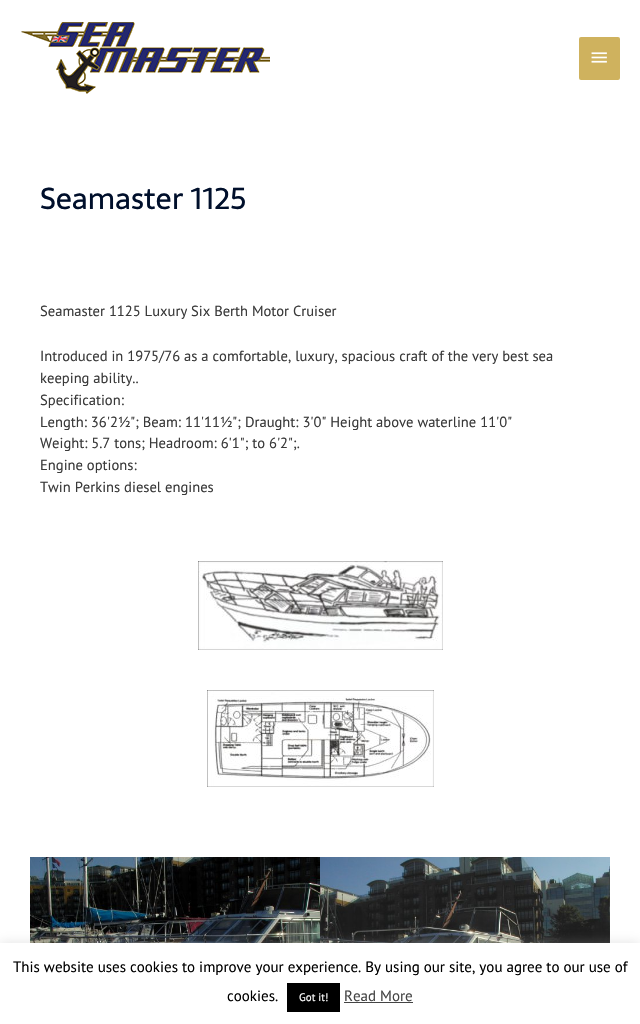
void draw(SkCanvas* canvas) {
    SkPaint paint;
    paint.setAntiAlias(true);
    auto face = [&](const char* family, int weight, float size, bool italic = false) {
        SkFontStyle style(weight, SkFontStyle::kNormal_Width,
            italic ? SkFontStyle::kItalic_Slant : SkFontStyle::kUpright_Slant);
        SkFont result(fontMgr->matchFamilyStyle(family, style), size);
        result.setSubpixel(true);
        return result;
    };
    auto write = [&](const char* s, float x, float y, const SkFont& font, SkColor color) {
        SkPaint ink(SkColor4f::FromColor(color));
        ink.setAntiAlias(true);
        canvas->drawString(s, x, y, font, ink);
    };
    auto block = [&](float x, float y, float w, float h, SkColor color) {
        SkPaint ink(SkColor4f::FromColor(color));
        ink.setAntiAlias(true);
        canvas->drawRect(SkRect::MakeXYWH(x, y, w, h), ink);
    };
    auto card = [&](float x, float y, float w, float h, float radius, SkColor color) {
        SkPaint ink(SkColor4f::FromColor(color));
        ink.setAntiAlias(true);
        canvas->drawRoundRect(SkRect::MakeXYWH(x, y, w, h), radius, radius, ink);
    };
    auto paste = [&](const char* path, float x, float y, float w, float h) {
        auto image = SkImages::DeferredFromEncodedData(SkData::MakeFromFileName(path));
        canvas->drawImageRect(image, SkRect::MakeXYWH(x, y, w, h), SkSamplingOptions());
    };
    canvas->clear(SK_ColorWHITE);
    paste("pic1.png", 21, 22, 249, 72);
    card(579, 37, 41, 43, 2, SkColorSetRGB(207, 178, 94));
    paste("pic2.png", 591, 52, 16, 11);
    auto kFont1 = face("Sarala", 400, 30);
    write("Seamaster 1125", 40, 209, kFont1, SkColorSetRGB(0, 15, 43));
    auto kFont2 = face("PT Sans", 400, 14.6f);
    write("Seamaster 1125 Luxury Six Berth Motor Cruiser", 40, 316, kFont2, SkColorSetRGB(58, 58, 58));
    write("Introduced in 1975/76 as a comfortable, luxury, spacious craft of the very best sea", 40, 361, kFont2, SkColorSetRGB(58, 58, 58));
    write("keeping ability..", 40, 383, kFont2, SkColorSetRGB(58, 58, 58));
    write("Specification:", 40, 405, kFont2, SkColorSetRGB(58, 58, 58));
    write("Length: 36'2½\"; Beam: 11'11½\"; Draught: 3'0\" Height above waterline 11'0\"", 40, 427, kFont2, SkColorSetRGB(58, 58, 58));
    write("Weight: 5.7 tons; Headroom: 6'1\"; to 6'2\";.", 40, 448, kFont2, SkColorSetRGB(58, 58, 58));
    write("Engine options:", 40, 470, kFont2, SkColorSetRGB(58, 58, 58));
    write("Twin Perkins diesel engines", 40, 492, kFont2, SkColorSetRGB(58, 58, 58));
    paste("pic3.png", 198, 561, 245, 89);
    paste("pic4.png", 207, 690, 227, 97);
    paste("pic5.png", 30, 857, 290, 86);
    paste("pic6.png", 320, 857, 290, 86);
    paint.setColor(SkColorSetARGB(77, 172, 171, 171));
    paint.setMaskFilter(SkMaskFilter::MakeBlur(kNormal_SkBlurStyle, 5));
    canvas->drawRect(SkRect::MakeXYWH(0, 942, 640, 81), paint);
    paint.setMaskFilter(nullptr);
    block(0, 943, 640, 81, SK_ColorWHITE);
    auto kFont3 = face("PT Sans", 400, 15);
    write("This website uses cookies to improve your experience. By using our site, you agree to our use of", 13, 972, kFont3, SK_ColorBLACK);
    write("cookies.", 227, 1001, kFont3, SK_ColorBLACK);
    block(287, 983, 53, 29, SK_ColorBLACK);
    auto kFont4 = face("PT Sans", 400, 11);
    write("Got it!", 299, 1001, kFont4, SK_ColorWHITE);
    write("Read More", 344, 1001, kFont3, SkColorSetRGB(68, 68, 68));
    block(344, 1002, 69, 1, SkColorSetRGB(68, 68, 68));
}
